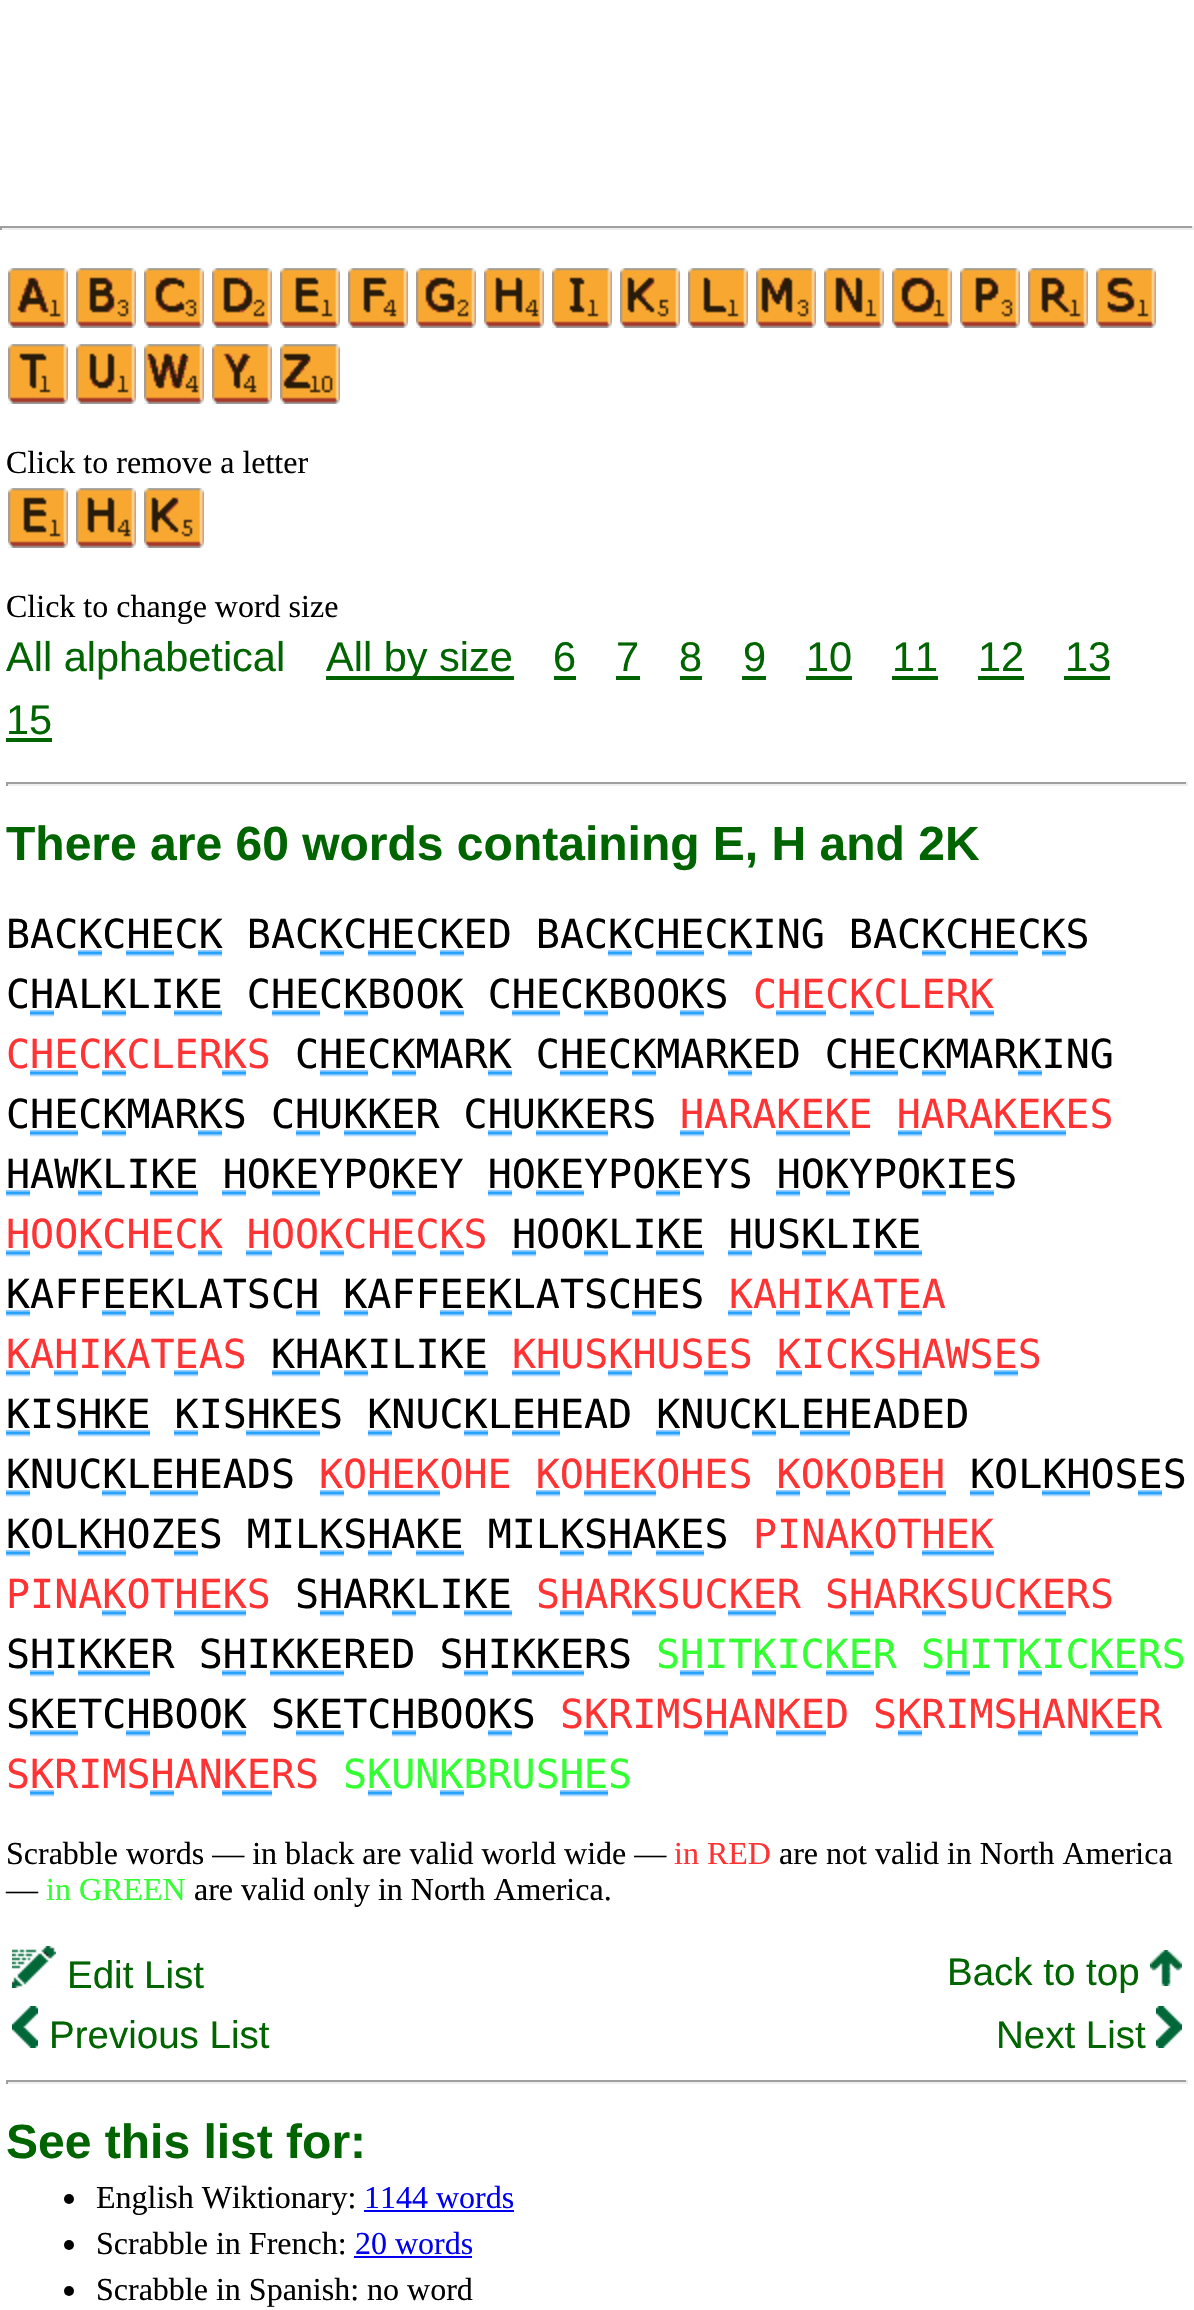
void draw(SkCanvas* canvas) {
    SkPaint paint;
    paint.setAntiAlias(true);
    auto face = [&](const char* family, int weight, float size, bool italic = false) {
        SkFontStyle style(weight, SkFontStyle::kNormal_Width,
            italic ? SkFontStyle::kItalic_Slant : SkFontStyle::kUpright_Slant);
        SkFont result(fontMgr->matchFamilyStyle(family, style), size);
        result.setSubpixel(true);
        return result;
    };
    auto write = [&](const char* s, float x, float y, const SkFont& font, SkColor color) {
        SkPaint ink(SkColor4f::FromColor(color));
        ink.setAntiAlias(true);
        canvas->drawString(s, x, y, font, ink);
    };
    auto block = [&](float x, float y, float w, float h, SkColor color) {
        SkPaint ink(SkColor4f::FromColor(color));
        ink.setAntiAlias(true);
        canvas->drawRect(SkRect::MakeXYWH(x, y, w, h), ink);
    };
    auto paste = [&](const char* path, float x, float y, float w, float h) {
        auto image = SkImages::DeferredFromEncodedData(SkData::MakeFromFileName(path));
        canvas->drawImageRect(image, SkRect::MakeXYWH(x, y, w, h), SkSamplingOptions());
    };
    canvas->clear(SK_ColorWHITE);
    block(0, 226, 1194, 2, SkColorSetRGB(159, 159, 159));
    block(1192, 226, 2, 4, SkColorSetRGB(238, 238, 238));
    block(0, 228, 1194, 2, SkColorSetRGB(238, 238, 238));
    block(0, 226, 2, 4, SkColorSetRGB(159, 159, 159));
    paste("pic1.png", 8, 268, 60, 60);
    paste("pic2.png", 76, 268, 60, 60);
    paste("pic3.png", 144, 268, 60, 60);
    paste("pic4.png", 212, 268, 60, 60);
    paste("pic5.png", 280, 268, 60, 60);
    paste("pic6.png", 348, 268, 60, 60);
    paste("pic7.png", 416, 268, 60, 60);
    paste("pic8.png", 484, 268, 60, 60);
    paste("pic9.png", 552, 268, 60, 60);
    paste("pic10.png", 620, 268, 60, 60);
    paste("pic11.png", 688, 268, 60, 60);
    paste("pic12.png", 756, 268, 60, 60);
    paste("pic13.png", 824, 268, 60, 60);
    paste("pic14.png", 892, 268, 60, 60);
    paste("pic15.png", 960, 268, 60, 60);
    paste("pic16.png", 1028, 268, 60, 60);
    paste("pic17.png", 1096, 268, 60, 60);
    paste("pic18.png", 8, 344, 60, 60);
    paste("pic19.png", 76, 344, 60, 60);
    paste("pic20.png", 144, 344, 60, 60);
    paste("pic21.png", 212, 344, 60, 60);
    paste("pic22.png", 280, 344, 60, 60);
    auto kFont1 = face("Liberation Serif", 400, 32);
    write("Click to remove a letter", 6, 473, kFont1, SK_ColorBLACK);
    paste("pic5.png", 8, 488, 60, 60);
    paste("pic8.png", 76, 488, 60, 60);
    paste("pic10.png", 144, 488, 60, 60);
    write("Click to change word size", 6, 617, kFont1, SK_ColorBLACK);
    auto kFont2 = face("Liberation Sans", 400, 41.5f);
    write("All alphabetical", 6, 671, kFont2, SkColorSetRGB(0, 100, 0));
    block(326, 676, 188, 4, SkColorSetRGB(0, 100, 0));
    write("All by size", 326, 671, kFont2, SkColorSetRGB(0, 100, 0));
    write("6", 553, 671, kFont2, SkColorSetRGB(0, 100, 0));
    block(554, 676, 22, 4, SkColorSetRGB(0, 100, 0));
    write("7", 616, 671, kFont2, SkColorSetRGB(0, 100, 0));
    block(616, 676, 24, 4, SkColorSetRGB(0, 100, 0));
    write("8", 679, 671, kFont2, SkColorSetRGB(0, 100, 0));
    block(680, 676, 22, 4, SkColorSetRGB(0, 100, 0));
    write("9", 743, 671, kFont2, SkColorSetRGB(0, 100, 0));
    block(742, 676, 24, 4, SkColorSetRGB(0, 100, 0));
    write("10", 806, 671, kFont2, SkColorSetRGB(0, 100, 0));
    block(806, 676, 46, 4, SkColorSetRGB(0, 100, 0));
    write("11", 892, 671, kFont2, SkColorSetRGB(0, 100, 0));
    block(892, 676, 46, 4, SkColorSetRGB(0, 100, 0));
    write("12", 978, 671, kFont2, SkColorSetRGB(0, 100, 0));
    block(978, 676, 46, 4, SkColorSetRGB(0, 100, 0));
    write("13", 1065, 671, kFont2, SkColorSetRGB(0, 100, 0));
    block(1064, 676, 46, 4, SkColorSetRGB(0, 100, 0));
    write("15", 6, 734, kFont2, SkColorSetRGB(0, 100, 0));
    block(6, 738, 46, 4, SkColorSetRGB(0, 100, 0));
    block(6, 782, 1182, 2, SkColorSetRGB(159, 159, 159));
    block(1186, 782, 2, 4, SkColorSetRGB(238, 238, 238));
    block(6, 784, 1182, 2, SkColorSetRGB(238, 238, 238));
    block(6, 782, 2, 4, SkColorSetRGB(159, 159, 159));
    auto kFont3 = face("Liberation Sans", 700, 48);
    write("There are 60 words containing E, H and 2K", 6, 860, kFont3, SkColorSetRGB(0, 100, 0));
    auto kFont4 = face("DejaVu Sans Mono", 400, 40);
    write("BACKCHECK BACKCHECKED BACKCHECKING BACKCHECKS", 6, 948, kFont4, SK_ColorBLACK);
    paste("pic23.png", 78, 950, 24, 7);
    paste("pic24.png", 126, 950, 48, 7);
    paste("pic23.png", 198, 950, 24, 7);
    paste("pic23.png", 320, 950, 24, 7);
    paste("pic24.png", 368, 950, 48, 7);
    paste("pic23.png", 440, 950, 24, 7);
    paste("pic23.png", 608, 950, 24, 7);
    paste("pic24.png", 656, 950, 48, 7);
    paste("pic23.png", 728, 950, 24, 7);
    paste("pic23.png", 922, 950, 24, 7);
    paste("pic24.png", 970, 950, 48, 7);
    paste("pic23.png", 1042, 950, 24, 7);
    write("CHALKLIKE CHECKBOOK CHECKBOOKS", 6, 1008, kFont4, SK_ColorBLACK);
    write("CHECKCLERK", 753, 1008, kFont4, SkColorSetRGB(255, 51, 51));
    paste("pic23.png", 30, 1010, 24, 7);
    paste("pic23.png", 102, 1010, 24, 7);
    paste("pic24.png", 174, 1010, 48, 7);
    paste("pic24.png", 272, 1010, 48, 7);
    paste("pic23.png", 344, 1010, 24, 7);
    paste("pic23.png", 440, 1010, 24, 7);
    paste("pic24.png", 512, 1010, 48, 7);
    paste("pic23.png", 584, 1010, 24, 7);
    paste("pic23.png", 680, 1010, 24, 7);
    paste("pic25.png", 776, 1010, 50, 7);
    paste("pic23.png", 850, 1010, 24, 7);
    paste("pic23.png", 970, 1010, 24, 7);
    write("CHECKCLERKS", 6, 1068, kFont4, SkColorSetRGB(255, 51, 51));
    write("CHECKMARK CHECKMARKED CHECKMARKING", 295, 1068, kFont4, SK_ColorBLACK);
    paste("pic24.png", 30, 1070, 48, 7);
    paste("pic23.png", 102, 1070, 24, 7);
    paste("pic23.png", 222, 1070, 24, 7);
    paste("pic24.png", 320, 1070, 48, 7);
    paste("pic23.png", 392, 1070, 24, 7);
    paste("pic23.png", 488, 1070, 24, 7);
    paste("pic24.png", 560, 1070, 48, 7);
    paste("pic23.png", 632, 1070, 24, 7);
    paste("pic23.png", 728, 1070, 24, 7);
    paste("pic24.png", 850, 1070, 48, 7);
    paste("pic23.png", 922, 1070, 24, 7);
    paste("pic23.png", 1018, 1070, 24, 7);
    write("CHECKMARKS CHUKKER CHUKKERS", 6, 1128, kFont4, SK_ColorBLACK);
    write("HARAKEKE HARAKEKES", 680, 1128, kFont4, SkColorSetRGB(255, 51, 51));
    paste("pic24.png", 30, 1130, 48, 7);
    paste("pic23.png", 102, 1130, 24, 7);
    paste("pic23.png", 198, 1130, 24, 7);
    paste("pic23.png", 296, 1130, 24, 7);
    paste("pic26.png", 344, 1130, 72, 7);
    paste("pic23.png", 488, 1130, 24, 7);
    paste("pic26.png", 536, 1130, 72, 7);
    paste("pic23.png", 680, 1130, 24, 7);
    paste("pic27.png", 776, 1130, 74, 7);
    paste("pic23.png", 898, 1130, 24, 7);
    paste("pic26.png", 994, 1130, 72, 7);
    write("HAWKLIKE HOKEYPOKEY HOKEYPOKEYS HOKYPOKIES", 6, 1188, kFont4, SK_ColorBLACK);
    paste("pic23.png", 6, 1190, 24, 7);
    paste("pic23.png", 78, 1190, 24, 7);
    paste("pic24.png", 150, 1190, 48, 7);
    paste("pic23.png", 222, 1190, 24, 7);
    paste("pic24.png", 272, 1190, 48, 7);
    paste("pic23.png", 392, 1190, 24, 7);
    paste("pic23.png", 488, 1190, 24, 7);
    paste("pic24.png", 536, 1190, 48, 7);
    paste("pic23.png", 656, 1190, 24, 7);
    paste("pic23.png", 776, 1190, 24, 7);
    paste("pic23.png", 826, 1190, 24, 7);
    paste("pic23.png", 922, 1190, 24, 7);
    paste("pic23.png", 970, 1190, 24, 7);
    write("HOOKCHECK HOOKCHECKS", 6, 1248, kFont4, SkColorSetRGB(255, 51, 51));
    write("HOOKLIKE HUSKLIKE", 512, 1248, kFont4, SK_ColorBLACK);
    paste("pic23.png", 6, 1250, 24, 7);
    paste("pic23.png", 78, 1250, 24, 7);
    paste("pic23.png", 150, 1250, 24, 7);
    paste("pic23.png", 198, 1250, 24, 7);
    paste("pic28.png", 246, 1250, 26, 7);
    paste("pic23.png", 320, 1250, 24, 7);
    paste("pic23.png", 392, 1250, 24, 7);
    paste("pic23.png", 440, 1250, 24, 7);
    paste("pic23.png", 512, 1250, 24, 7);
    paste("pic23.png", 584, 1250, 24, 7);
    paste("pic24.png", 656, 1250, 48, 7);
    paste("pic23.png", 728, 1250, 24, 7);
    paste("pic23.png", 802, 1250, 24, 7);
    paste("pic24.png", 874, 1250, 48, 7);
    write("KAFFEEKLATSCH KAFFEEKLATSCHES", 6, 1308, kFont4, SK_ColorBLACK);
    write("KAHIKATEA", 729, 1308, kFont4, SkColorSetRGB(255, 51, 51));
    paste("pic23.png", 6, 1310, 24, 7);
    paste("pic23.png", 102, 1310, 24, 7);
    paste("pic23.png", 150, 1310, 24, 7);
    paste("pic23.png", 296, 1310, 24, 7);
    paste("pic23.png", 344, 1310, 24, 7);
    paste("pic23.png", 440, 1310, 24, 7);
    paste("pic23.png", 488, 1310, 24, 7);
    paste("pic23.png", 632, 1310, 24, 7);
    paste("pic23.png", 728, 1310, 24, 7);
    paste("pic23.png", 776, 1310, 24, 7);
    paste("pic23.png", 826, 1310, 24, 7);
    paste("pic23.png", 898, 1310, 24, 7);
    write("KAHIKATEAS", 6, 1368, kFont4, SkColorSetRGB(255, 51, 51));
    write("KHAKILIKE", 271, 1368, kFont4, SK_ColorBLACK);
    write("KHUSKHUSES KICKSHAWSES", 512, 1368, kFont4, SkColorSetRGB(255, 51, 51));
    paste("pic23.png", 6, 1370, 24, 7);
    paste("pic23.png", 54, 1370, 24, 7);
    paste("pic23.png", 102, 1370, 24, 7);
    paste("pic23.png", 174, 1370, 24, 7);
    paste("pic24.png", 272, 1370, 48, 7);
    paste("pic23.png", 344, 1370, 24, 7);
    paste("pic23.png", 464, 1370, 24, 7);
    paste("pic24.png", 512, 1370, 48, 7);
    paste("pic23.png", 608, 1370, 24, 7);
    paste("pic23.png", 704, 1370, 24, 7);
    paste("pic28.png", 776, 1370, 26, 7);
    paste("pic23.png", 850, 1370, 24, 7);
    paste("pic23.png", 898, 1370, 24, 7);
    paste("pic23.png", 994, 1370, 24, 7);
    write("KISHKE KISHKES KNUCKLEHEAD KNUCKLEHEADED", 6, 1428, kFont4, SK_ColorBLACK);
    paste("pic23.png", 6, 1430, 24, 7);
    paste("pic26.png", 78, 1430, 72, 7);
    paste("pic23.png", 174, 1430, 24, 7);
    paste("pic27.png", 246, 1430, 74, 7);
    paste("pic23.png", 368, 1430, 24, 7);
    paste("pic23.png", 464, 1430, 24, 7);
    paste("pic24.png", 512, 1430, 48, 7);
    paste("pic23.png", 656, 1430, 24, 7);
    paste("pic23.png", 752, 1430, 24, 7);
    paste("pic25.png", 800, 1430, 50, 7);
    write("KNUCKLEHEADS", 6, 1488, kFont4, SK_ColorBLACK);
    write("KOHEKOHE KOHEKOHES KOKOBEH", 319, 1488, kFont4, SkColorSetRGB(255, 51, 51));
    write("KOLKHOSES", 970, 1488, kFont4, SK_ColorBLACK);
    paste("pic23.png", 6, 1490, 24, 7);
    paste("pic23.png", 102, 1490, 24, 7);
    paste("pic24.png", 150, 1490, 48, 7);
    paste("pic23.png", 320, 1490, 24, 7);
    paste("pic26.png", 368, 1490, 72, 7);
    paste("pic23.png", 536, 1490, 24, 7);
    paste("pic26.png", 584, 1490, 72, 7);
    paste("pic23.png", 776, 1490, 24, 7);
    paste("pic23.png", 826, 1490, 24, 7);
    paste("pic24.png", 898, 1490, 48, 7);
    paste("pic23.png", 970, 1490, 24, 7);
    paste("pic24.png", 1042, 1490, 48, 7);
    paste("pic23.png", 1138, 1490, 24, 7);
    write("KOLKHOZES MILKSHAKE MILKSHAKES", 6, 1548, kFont4, SK_ColorBLACK);
    write("PINAKOTHEK", 753, 1548, kFont4, SkColorSetRGB(255, 51, 51));
    paste("pic23.png", 6, 1550, 24, 7);
    paste("pic24.png", 78, 1550, 48, 7);
    paste("pic23.png", 174, 1550, 24, 7);
    paste("pic23.png", 320, 1550, 24, 7);
    paste("pic23.png", 368, 1550, 24, 7);
    paste("pic24.png", 416, 1550, 48, 7);
    paste("pic23.png", 560, 1550, 24, 7);
    paste("pic23.png", 608, 1550, 24, 7);
    paste("pic24.png", 656, 1550, 48, 7);
    paste("pic23.png", 850, 1550, 24, 7);
    paste("pic26.png", 922, 1550, 72, 7);
    write("PINAKOTHEKS", 6, 1608, kFont4, SkColorSetRGB(255, 51, 51));
    write("SHARKLIKE", 295, 1608, kFont4, SK_ColorBLACK);
    write("SHARKSUCKER SHARKSUCKERS", 536, 1608, kFont4, SkColorSetRGB(255, 51, 51));
    paste("pic23.png", 102, 1610, 24, 7);
    paste("pic26.png", 174, 1610, 72, 7);
    paste("pic23.png", 320, 1610, 24, 7);
    paste("pic23.png", 392, 1610, 24, 7);
    paste("pic24.png", 464, 1610, 48, 7);
    paste("pic23.png", 560, 1610, 24, 7);
    paste("pic23.png", 632, 1610, 24, 7);
    paste("pic24.png", 728, 1610, 48, 7);
    paste("pic23.png", 850, 1610, 24, 7);
    paste("pic23.png", 922, 1610, 24, 7);
    paste("pic24.png", 1018, 1610, 48, 7);
    write("SHIKKER SHIKKERED SHIKKERS", 6, 1668, kFont4, SK_ColorBLACK);
    write("SHITKICKER SHITKICKERS", 656, 1668, kFont4, SkColorSetRGB(51, 255, 51));
    paste("pic23.png", 30, 1670, 24, 7);
    paste("pic26.png", 78, 1670, 72, 7);
    paste("pic23.png", 222, 1670, 24, 7);
    paste("pic27.png", 270, 1670, 74, 7);
    paste("pic23.png", 464, 1670, 24, 7);
    paste("pic26.png", 512, 1670, 72, 7);
    paste("pic23.png", 680, 1670, 24, 7);
    paste("pic23.png", 752, 1670, 24, 7);
    paste("pic24.png", 826, 1670, 48, 7);
    paste("pic23.png", 946, 1670, 24, 7);
    paste("pic23.png", 1018, 1670, 24, 7);
    paste("pic24.png", 1090, 1670, 48, 7);
    write("SKETCHBOOK SKETCHBOOKS", 6, 1728, kFont4, SK_ColorBLACK);
    write("SKRIMSHANKED SKRIMSHANKER", 560, 1728, kFont4, SkColorSetRGB(255, 51, 51));
    paste("pic24.png", 30, 1730, 48, 7);
    paste("pic23.png", 126, 1730, 24, 7);
    paste("pic23.png", 222, 1730, 24, 7);
    paste("pic24.png", 296, 1730, 48, 7);
    paste("pic23.png", 392, 1730, 24, 7);
    paste("pic23.png", 488, 1730, 24, 7);
    paste("pic23.png", 584, 1730, 24, 7);
    paste("pic23.png", 704, 1730, 24, 7);
    paste("pic25.png", 776, 1730, 50, 7);
    paste("pic23.png", 898, 1730, 24, 7);
    paste("pic23.png", 1018, 1730, 24, 7);
    paste("pic24.png", 1090, 1730, 48, 7);
    write("SKRIMSHANKERS", 6, 1788, kFont4, SkColorSetRGB(255, 51, 51));
    write("SKUNKBRUSHES", 343, 1788, kFont4, SkColorSetRGB(51, 255, 51));
    paste("pic23.png", 30, 1790, 24, 7);
    paste("pic23.png", 150, 1790, 24, 7);
    paste("pic25.png", 222, 1790, 50, 7);
    paste("pic23.png", 368, 1790, 24, 7);
    paste("pic23.png", 440, 1790, 24, 7);
    paste("pic24.png", 560, 1790, 48, 7);
    write("Scrabble words — in black are valid world wide —", 6, 1864, kFont1, SK_ColorBLACK);
    write("in RED", 674, 1864, kFont1, SkColorSetRGB(255, 51, 51));
    write("are not valid in North America", 779, 1864, kFont1, SK_ColorBLACK);
    write("—", 6, 1900, kFont1, SK_ColorBLACK);
    write("in GREEN", 46, 1900, kFont1, SkColorSetRGB(51, 255, 51));
    write("are valid only in North America.", 194, 1900, kFont1, SK_ColorBLACK);
    paste("pic29.png", 12, 1946, 44, 42);
    auto kFont5 = face("Liberation Sans", 400, 38.5f);
    write("Edit List", 67, 1988, kFont5, SkColorSetRGB(0, 100, 0));
    write("Back to top", 947, 1985, kFont5, SkColorSetRGB(0, 100, 0));
    paste("pic30.png", 1150, 1950, 32, 36);
    paste("pic31.png", 12, 2006, 26, 42);
    write("Previous List", 49, 2048, kFont5, SkColorSetRGB(0, 100, 0));
    write("Next List", 996, 2048, kFont5, SkColorSetRGB(0, 100, 0));
    paste("pic32.png", 1156, 2006, 26, 42);
    block(6, 2080, 1182, 2, SkColorSetRGB(159, 159, 159));
    block(1186, 2080, 2, 4, SkColorSetRGB(238, 238, 238));
    block(6, 2082, 1182, 2, SkColorSetRGB(238, 238, 238));
    block(6, 2080, 2, 4, SkColorSetRGB(159, 159, 159));
    write("See this list for:", 6, 2158, kFont3, SkColorSetRGB(0, 100, 0));
    paint.setColor(SK_ColorBLACK);
    canvas->drawCircle(69, 2199, 5, paint);
    write("English Wiktionary:", 96, 2208, kFont1, SK_ColorBLACK);
    write("1144 words", 364, 2208, kFont1, SkColorSetRGB(0, 0, 238));
    block(364, 2210, 150, 2, SkColorSetRGB(0, 0, 238));
    canvas->drawCircle(69, 2245, 5, paint);
    write("Scrabble in French:", 96, 2254, kFont1, SK_ColorBLACK);
    write("20 words", 355, 2254, kFont1, SkColorSetRGB(0, 0, 238));
    block(354, 2256, 118, 2, SkColorSetRGB(0, 0, 238));
    canvas->drawCircle(69, 2291, 5, paint);
    write("Scrabble in Spanish: no word", 96, 2300, kFont1, SK_ColorBLACK);
}
